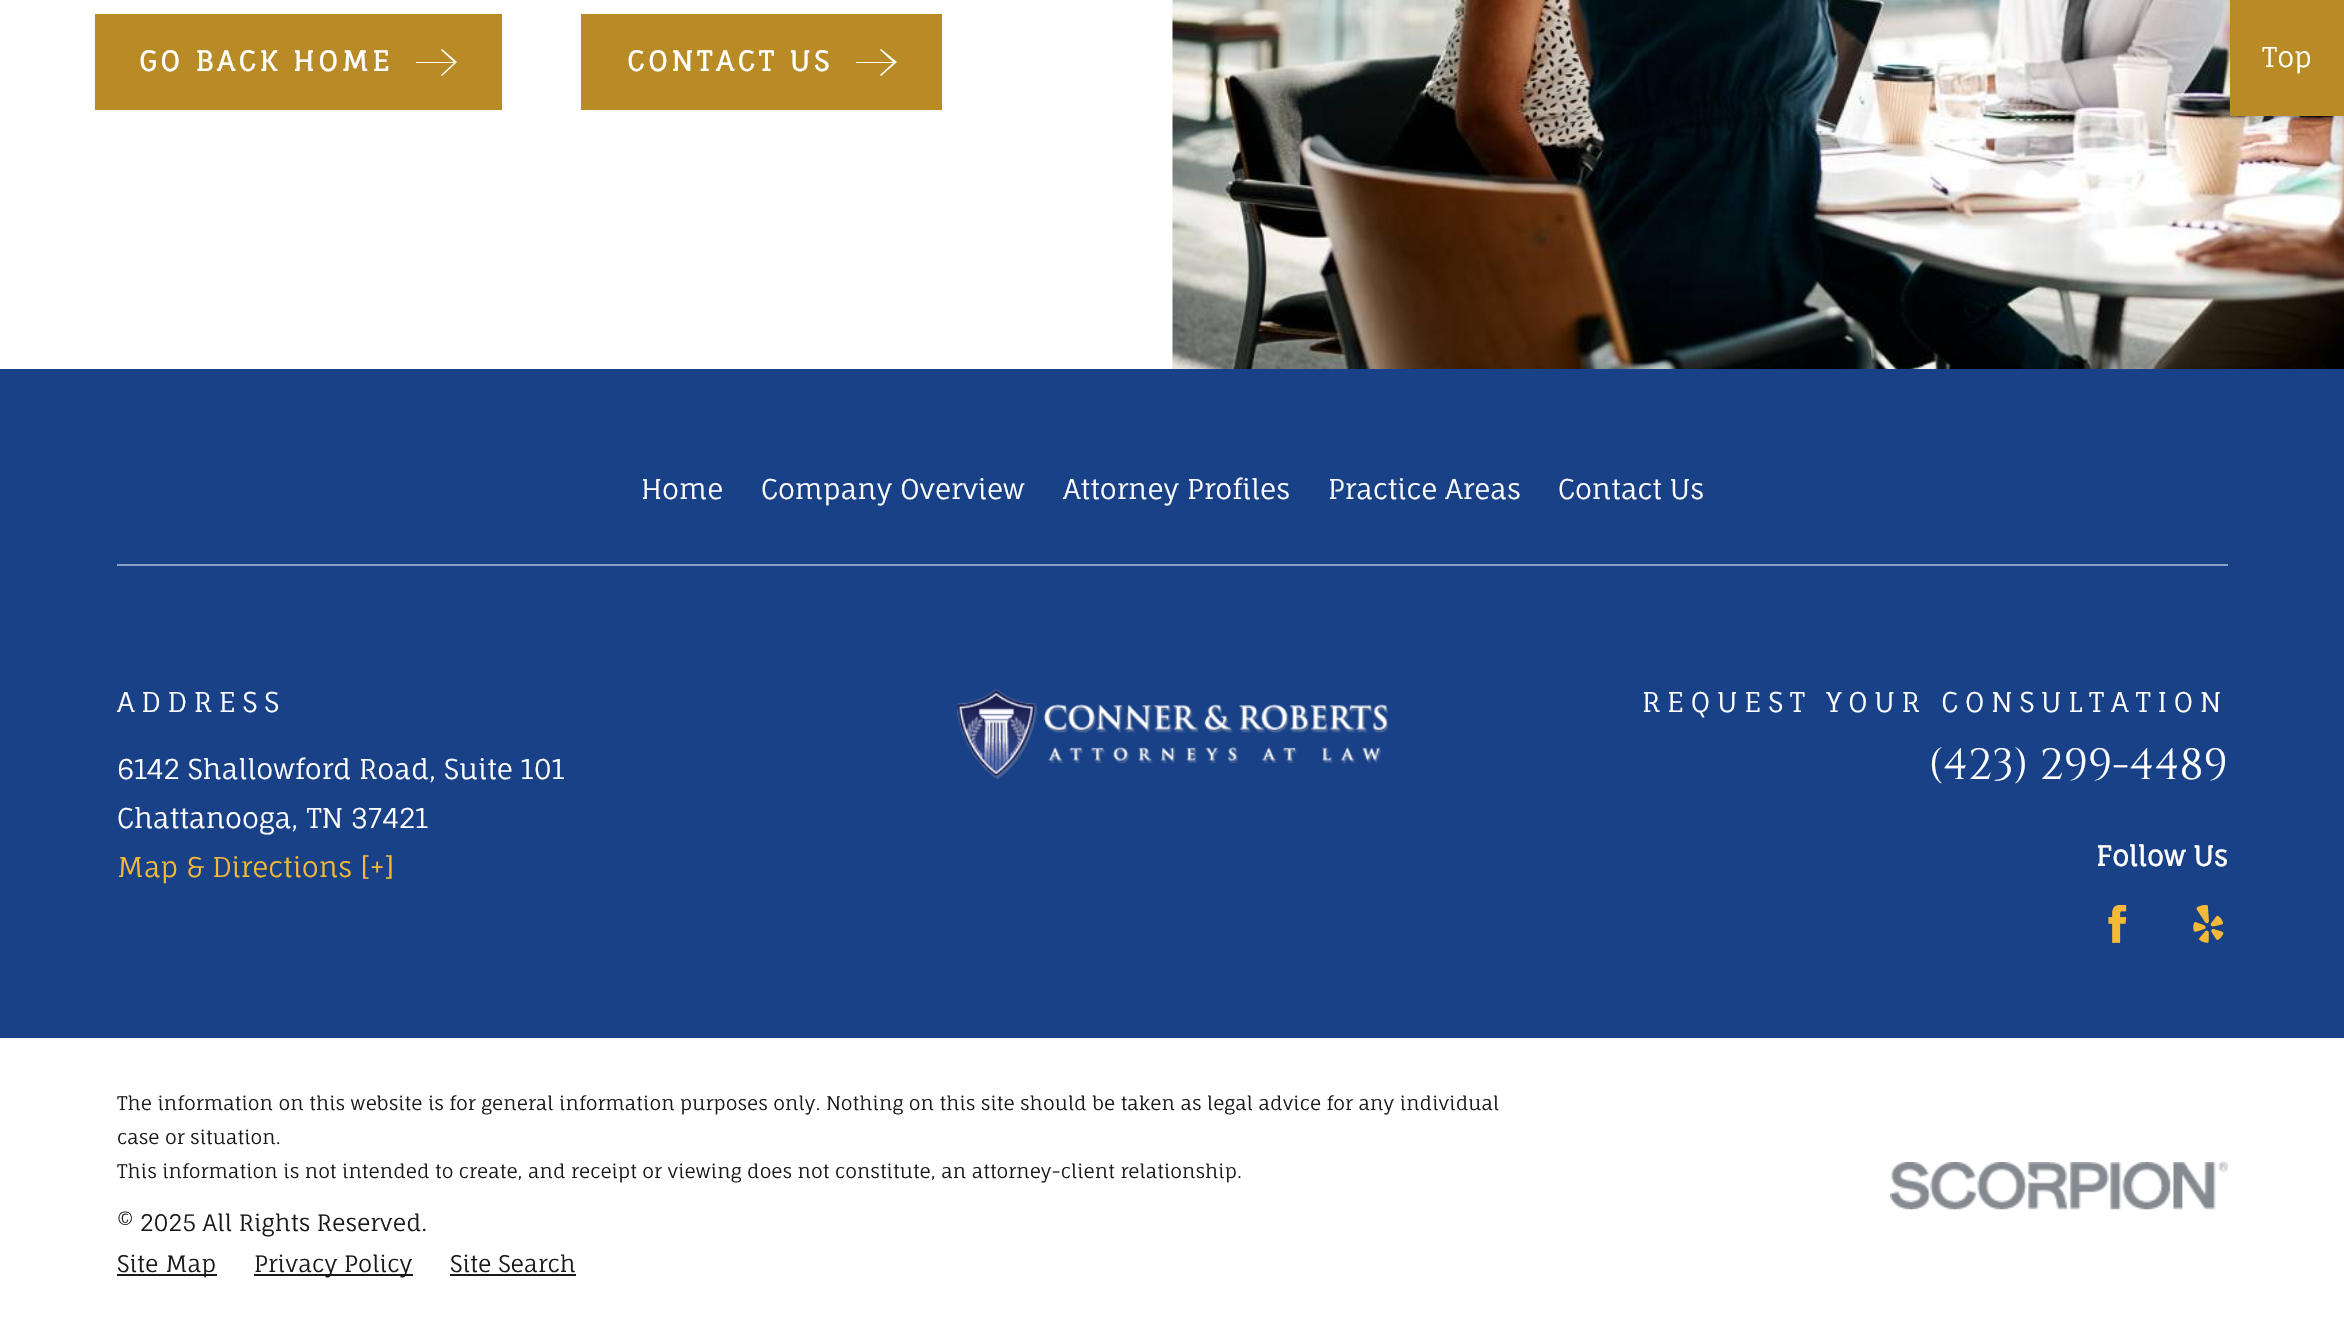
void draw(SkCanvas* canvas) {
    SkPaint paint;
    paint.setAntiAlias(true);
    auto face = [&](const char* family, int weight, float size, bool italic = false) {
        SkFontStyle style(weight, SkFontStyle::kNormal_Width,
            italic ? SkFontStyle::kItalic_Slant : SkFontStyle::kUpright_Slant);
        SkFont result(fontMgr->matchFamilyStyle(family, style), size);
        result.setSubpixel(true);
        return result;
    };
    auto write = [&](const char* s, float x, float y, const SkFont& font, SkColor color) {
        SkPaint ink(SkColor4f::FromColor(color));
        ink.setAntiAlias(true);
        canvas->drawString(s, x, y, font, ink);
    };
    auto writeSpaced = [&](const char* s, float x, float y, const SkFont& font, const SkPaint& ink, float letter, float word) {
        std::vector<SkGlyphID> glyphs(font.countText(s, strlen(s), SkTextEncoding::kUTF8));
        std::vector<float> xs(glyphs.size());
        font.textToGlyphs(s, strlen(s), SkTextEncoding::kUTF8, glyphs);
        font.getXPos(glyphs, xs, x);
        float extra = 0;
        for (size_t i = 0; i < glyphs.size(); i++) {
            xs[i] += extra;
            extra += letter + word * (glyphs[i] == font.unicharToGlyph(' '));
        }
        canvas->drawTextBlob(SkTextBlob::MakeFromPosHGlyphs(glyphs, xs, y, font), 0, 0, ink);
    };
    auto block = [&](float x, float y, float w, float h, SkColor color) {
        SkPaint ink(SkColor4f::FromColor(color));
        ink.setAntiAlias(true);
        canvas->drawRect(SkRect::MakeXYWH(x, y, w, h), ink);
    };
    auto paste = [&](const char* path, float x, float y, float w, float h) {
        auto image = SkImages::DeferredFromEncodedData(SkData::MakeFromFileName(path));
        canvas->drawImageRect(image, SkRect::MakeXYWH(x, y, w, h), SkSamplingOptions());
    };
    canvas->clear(SK_ColorWHITE);
    block(95, 14, 407, 96, SkColorSetRGB(184, 139, 39));
    auto kFont1 = face("Fauna One", 700, 27.25f);
    paint.setColor(SK_ColorWHITE);
    writeSpaced("GO BACK HOME", 139, 71, kFont1, paint, 4, 0);
    canvas->drawPath(SkPathBuilder().moveTo(441, 75).lineTo(442, 76).lineTo(457, 62).lineTo(442, 49).lineTo(441, 50).lineTo(454, 62).lineTo(416, 62).lineTo(416, 63).lineTo(454, 63).close().detach(), paint);
    block(581, 14, 361, 96, SkColorSetRGB(184, 139, 39));
    writeSpaced("CONTACT US", 627, 71, kFont1, paint, 4, 0);
    canvas->drawPath(SkPathBuilder().moveTo(880, 75).lineTo(881, 76).lineTo(897, 62).lineTo(881, 49).lineTo(880, 50).lineTo(893, 62).lineTo(856, 62).lineTo(856, 63).lineTo(893, 63).close().detach(), paint);
    paste("pic1.png", 1172, 0, 1172, 369);
    paint.setColor(SkColorSetARGB(41, 0, 0, 0));
    paint.setMaskFilter(SkMaskFilter::MakeBlur(kNormal_SkBlurStyle, 7));
    canvas->drawRect(SkRect::MakeXYWH(2233, 4, 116, 115), paint);
    paint.setMaskFilter(nullptr);
    block(2230, 0, 114, 116, SkColorSetRGB(184, 139, 39));
    auto kFont2 = face("Fauna One", 400, 27.25f);
    write("Top", 2262, 67, kFont2, SK_ColorWHITE);
    block(0, 369, 2344, 669, SkColorSetRGB(25, 65, 135));
    block(117, 564, 2111, 2, SkColorSetRGB(140, 160, 195));
    write("Home", 641, 499, kFont2, SK_ColorWHITE);
    write("Company Overview", 761, 499, kFont2, SK_ColorWHITE);
    write("Attorney Profiles", 1063, 499, kFont2, SK_ColorWHITE);
    write("Practice Areas", 1328, 499, kFont2, SK_ColorWHITE);
    write("Contact Us", 1558, 499, kFont2, SK_ColorWHITE);
    paint.setColor(SK_ColorWHITE);
    writeSpaced("ADDRESS", 117, 712, kFont2, paint, 6.8f, 0);
    write("6142 Shallowford Road, Suite 101", 117, 779, kFont2, SK_ColorWHITE);
    write("Chattanooga, TN 37421", 117, 828, kFont2, SK_ColorWHITE);
    write("Map & Directions [+]", 117, 877, kFont2, SkColorSetRGB(243, 185, 55));
    paste("pic2.png", 957, 689, 431, 90);
    writeSpaced("REQUEST YOUR CONSULTATION", 1642, 712, kFont2, paint, 6.8f, 0);
    auto kFont3 = face("Cinzel", 400, 43.5f);
    write("(423) 299-4489", 1928, 779, kFont3, SK_ColorWHITE);
    write("Follow Us", 2096, 866, kFont1, SK_ColorWHITE);
    paste("pic3.png", 2108, 905, 19, 38);
    paste("pic4.png", 2193, 905, 31, 38);
    auto kFont4 = face("Fauna One", 400, 18.9f);
    write("The information on this website is for general information purposes only. Nothing on this site should be taken as legal advice for any individual", 117, 1110, kFont4, SkColorSetRGB(25, 25, 25));
    write("case or situation.", 117, 1144, kFont4, SkColorSetRGB(25, 25, 25));
    write("This information is not intended to create, and receipt or viewing does not constitute, an attorney-client relationship.", 117, 1178, kFont4, SkColorSetRGB(25, 25, 25));
    auto kFont5 = face("Fauna One", 400, 22.75f);
    write("© 2025 All Rights Reserved.", 117, 1231, kFont5, SkColorSetRGB(25, 25, 25));
    block(117, 1274, 100, 2, SkColorSetRGB(25, 25, 25));
    write("Site Map", 117, 1272, kFont5, SkColorSetRGB(25, 25, 25));
    block(254, 1274, 159, 2, SkColorSetRGB(25, 25, 25));
    write("Privacy Policy", 254, 1272, kFont5, SkColorSetRGB(25, 25, 25));
    write("Site Search", 450, 1272, kFont5, SkColorSetRGB(25, 25, 25));
    block(450, 1274, 126, 2, SkColorSetRGB(25, 25, 25));
    paste("pic5.png", 1890, 1162, 338, 48);
}
